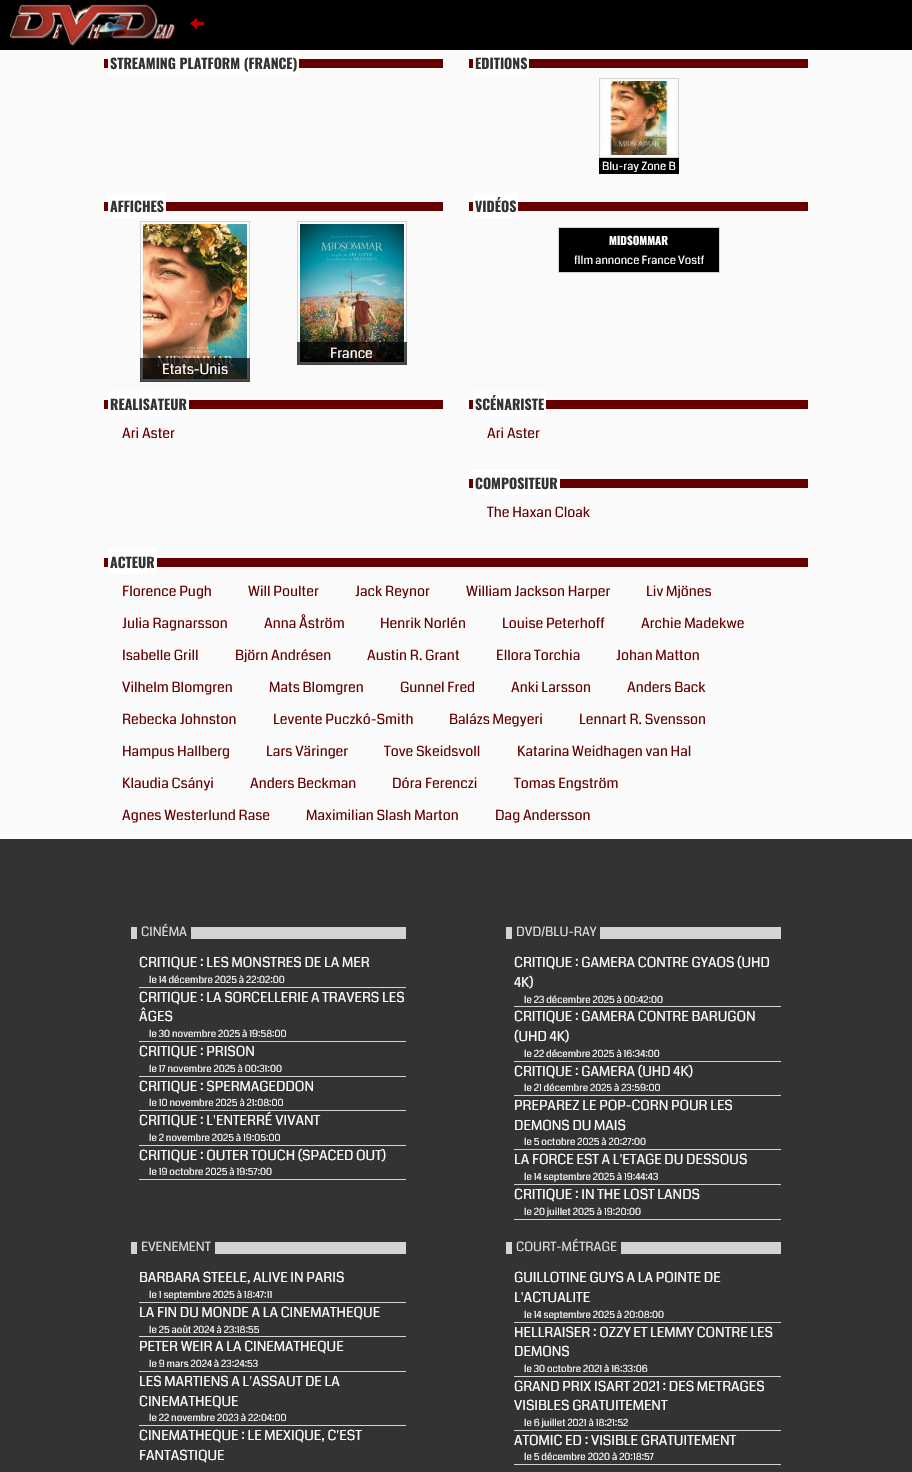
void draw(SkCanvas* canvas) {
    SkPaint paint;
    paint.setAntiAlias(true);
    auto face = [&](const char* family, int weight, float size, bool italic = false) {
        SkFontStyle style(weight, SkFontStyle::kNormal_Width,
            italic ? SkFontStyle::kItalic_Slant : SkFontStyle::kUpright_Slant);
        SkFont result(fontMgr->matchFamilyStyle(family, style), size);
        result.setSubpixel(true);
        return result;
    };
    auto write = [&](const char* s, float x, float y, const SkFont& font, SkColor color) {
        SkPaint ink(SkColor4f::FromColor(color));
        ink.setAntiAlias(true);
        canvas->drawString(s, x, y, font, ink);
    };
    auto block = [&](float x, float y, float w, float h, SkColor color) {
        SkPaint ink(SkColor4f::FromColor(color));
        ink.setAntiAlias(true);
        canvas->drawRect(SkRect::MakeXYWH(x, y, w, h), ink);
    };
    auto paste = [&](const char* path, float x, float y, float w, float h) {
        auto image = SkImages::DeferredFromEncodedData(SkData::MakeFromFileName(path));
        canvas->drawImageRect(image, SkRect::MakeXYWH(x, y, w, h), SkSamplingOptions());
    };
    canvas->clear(SkColorSetRGB(51, 51, 51));
    block(0, 0, 912, 50, SK_ColorBLACK);
    paste("pic1.png", 9, 4, 167, 42);
    paste("pic2.png", 190, 18, 14, 11);
    block(0, 50, 912, 789, SkColorSetRGB(250, 250, 250));
    block(104, 59, 339, 9, SkColorSetRGB(102, 0, 0));
    block(108, 50, 191, 25, SK_ColorWHITE);
    auto kFont1 = face("Oswald", 700, 14);
    write("STREAMING PLATFORM (FRANCE)", 110, 69, kFont1, SkColorSetRGB(51, 51, 51));
    block(469, 59, 339, 9, SkColorSetRGB(102, 0, 0));
    block(473, 50, 56, 25, SK_ColorWHITE);
    write("EDITIONS", 475, 69, kFont1, SkColorSetRGB(51, 51, 51));
    paint.setStyle(SkPaint::kStroke_Style);
    paint.setStrokeWidth(1);
    paint.setColor(SkColorSetRGB(211, 211, 211));
    canvas->drawRect(SkRect::MakeXYWH(599.5f, 78.5f, 79, 79), paint);
    paste("pic3.png", 602, 81, 74, 74);
    block(599, 158, 80, 16, SK_ColorBLACK);
    auto kFont2 = face("Coda", 400, 11.25f);
    write("Blu-ray Zone B", 602, 170, kFont2, SK_ColorWHITE);
    block(104, 202, 339, 9, SkColorSetRGB(102, 0, 0));
    block(108, 193, 58, 25, SK_ColorWHITE);
    write("AFFICHES", 110, 212, kFont1, SkColorSetRGB(51, 51, 51));
    canvas->drawRect(SkRect::MakeXYWH(297.5f, 221.5f, 109, 143), paint);
    paste("pic4.png", 300, 224, 104, 138);
    block(297, 342, 110, 23, SkColorSetARGB(179, 0, 0, 0));
    auto kFont3 = face("Coda", 400, 14);
    write("France", 330, 358, kFont3, SK_ColorWHITE);
    canvas->drawRect(SkRect::MakeXYWH(140.5f, 221.5f, 109, 160), paint);
    paste("pic5.png", 143, 224, 104, 155);
    block(140, 358, 110, 24, SkColorSetARGB(179, 0, 0, 0));
    write("Etats-Unis", 162, 374, kFont3, SK_ColorWHITE);
    block(469, 202, 339, 9, SkColorSetRGB(102, 0, 0));
    block(473, 193, 45, 25, SK_ColorWHITE);
    write("VIDÉOS", 475, 212, kFont1, SkColorSetRGB(51, 51, 51));
    paint.setStyle(SkPaint::kFill_Style);
    paint.setColor(SK_ColorBLACK);
    canvas->drawRect(SkRect::MakeXYWH(558.5f, 227.5f, 161, 45), paint);
    paint.setStyle(SkPaint::kStroke_Style);
    paint.setColor(SkColorSetRGB(211, 211, 211));
    canvas->drawRect(SkRect::MakeXYWH(558.5f, 227.5f, 161, 45), paint);
    auto kFont4 = face("Oswald", 700, 11.25f);
    write("MIDSOMMAR", 609, 245, kFont4, SK_ColorWHITE);
    write("fIlm annonce France Vostf", 574, 264, kFont2, SK_ColorWHITE);
    block(104, 400, 339, 9, SkColorSetRGB(102, 0, 0));
    block(108, 391, 81, 25, SK_ColorWHITE);
    write("REALISATEUR", 110, 410, kFont1, SkColorSetRGB(51, 51, 51));
    write("Ari Aster", 122, 438, kFont3, SkColorSetRGB(102, 0, 0));
    block(469, 400, 339, 9, SkColorSetRGB(102, 0, 0));
    block(473, 391, 73, 25, SK_ColorWHITE);
    write("SCÉNARISTE", 475, 410, kFont1, SkColorSetRGB(51, 51, 51));
    write("Ari Aster", 487, 438, kFont3, SkColorSetRGB(102, 0, 0));
    block(469, 479, 339, 9, SkColorSetRGB(102, 0, 0));
    block(473, 470, 87, 25, SK_ColorWHITE);
    write("COMPOSITEUR", 475, 489, kFont1, SkColorSetRGB(51, 51, 51));
    write("The Haxan Cloak", 487, 517, kFont3, SkColorSetRGB(102, 0, 0));
    block(104, 558, 704, 9, SkColorSetRGB(102, 0, 0));
    block(108, 549, 49, 25, SK_ColorWHITE);
    write("ACTEUR", 110, 568, kFont1, SkColorSetRGB(51, 51, 51));
    write("Florence Pugh", 122, 596, kFont3, SkColorSetRGB(102, 0, 0));
    write("Will Poulter", 248, 596, kFont3, SkColorSetRGB(102, 0, 0));
    write("Jack Reynor", 355, 596, kFont3, SkColorSetRGB(102, 0, 0));
    write("William Jackson Harper", 466, 596, kFont3, SkColorSetRGB(102, 0, 0));
    write("Liv Mjönes", 646, 596, kFont3, SkColorSetRGB(102, 0, 0));
    write("Julia Ragnarsson", 122, 628, kFont3, SkColorSetRGB(102, 0, 0));
    write("Anna Åström", 264, 628, kFont3, SkColorSetRGB(102, 0, 0));
    write("Henrik Norlén", 380, 628, kFont3, SkColorSetRGB(102, 0, 0));
    write("Louise Peterhoff", 502, 628, kFont3, SkColorSetRGB(102, 0, 0));
    write("Archie Madekwe", 641, 628, kFont3, SkColorSetRGB(102, 0, 0));
    write("Isabelle Grill", 122, 660, kFont3, SkColorSetRGB(102, 0, 0));
    write("Björn Andrésen", 235, 660, kFont3, SkColorSetRGB(102, 0, 0));
    write("Austin R. Grant", 367, 660, kFont3, SkColorSetRGB(102, 0, 0));
    write("Ellora Torchia", 496, 660, kFont3, SkColorSetRGB(102, 0, 0));
    write("Johan Matton", 616, 660, kFont3, SkColorSetRGB(102, 0, 0));
    write("Vilhelm Blomgren", 122, 692, kFont3, SkColorSetRGB(102, 0, 0));
    write("Mats Blomgren", 269, 692, kFont3, SkColorSetRGB(102, 0, 0));
    write("Gunnel Fred", 400, 692, kFont3, SkColorSetRGB(102, 0, 0));
    write("Anki Larsson", 511, 692, kFont3, SkColorSetRGB(102, 0, 0));
    write("Anders Back", 627, 692, kFont3, SkColorSetRGB(102, 0, 0));
    write("Rebecka Johnston", 122, 724, kFont3, SkColorSetRGB(102, 0, 0));
    write("Levente Puczkó-Smith", 273, 724, kFont3, SkColorSetRGB(102, 0, 0));
    write("Balázs Megyeri", 449, 724, kFont3, SkColorSetRGB(102, 0, 0));
    write("Lennart R. Svensson", 579, 724, kFont3, SkColorSetRGB(102, 0, 0));
    write("Hampus Hallberg", 122, 756, kFont3, SkColorSetRGB(102, 0, 0));
    write("Lars Väringer", 266, 756, kFont3, SkColorSetRGB(102, 0, 0));
    write("Tove Skeidsvoll", 384, 756, kFont3, SkColorSetRGB(102, 0, 0));
    write("Katarina Weidhagen van Hal", 517, 756, kFont3, SkColorSetRGB(102, 0, 0));
    write("Klaudia Csányi", 122, 788, kFont3, SkColorSetRGB(102, 0, 0));
    write("Anders Beckman", 250, 788, kFont3, SkColorSetRGB(102, 0, 0));
    write("Dóra Ferenczi", 392, 788, kFont3, SkColorSetRGB(102, 0, 0));
    write("Tomas Engström", 514, 788, kFont3, SkColorSetRGB(102, 0, 0));
    write("Agnes Westerlund Rase", 122, 820, kFont3, SkColorSetRGB(102, 0, 0));
    write("Maximilian Slash Marton", 306, 820, kFont3, SkColorSetRGB(102, 0, 0));
    write("Dag Andersson", 495, 820, kFont3, SkColorSetRGB(102, 0, 0));
    block(131, 927, 275, 12, SkColorSetRGB(211, 211, 211));
    block(137, 927, 54, 12, SkColorSetRGB(51, 51, 51));
    auto kFont5 = face("Coda", 400, 12.75f);
    write("CINÉMA", 141, 936, kFont5, SkColorSetRGB(221, 221, 221));
    block(139, 987, 267, 1, SkColorSetRGB(211, 211, 211));
    auto kFont6 = face("Coda", 400, 13.75f);
    write("CRITIQUE : LES MONSTRES DE LA MER", 139, 967, kFont6, SK_ColorWHITE);
    auto kFont7 = face("Coda", 400, 9.75f);
    write("le 14 décembre 2025 à 22:02:00", 149, 983, kFont7, SK_ColorWHITE);
    block(139, 1041, 267, 1, SkColorSetRGB(211, 211, 211));
    write("CRITIQUE : LA SORCELLERIE A TRAVERS LES", 139, 1002, kFont6, SK_ColorWHITE);
    write("ÂGES", 139, 1021, kFont6, SK_ColorWHITE);
    write("le 30 novembre 2025 à 19:58:00", 149, 1037, kFont7, SK_ColorWHITE);
    block(139, 1076, 267, 1, SkColorSetRGB(211, 211, 211));
    write("CRITIQUE : PRISON", 139, 1056, kFont6, SK_ColorWHITE);
    write("le 17 novembre 2025 à 00:31:00", 149, 1072, kFont7, SK_ColorWHITE);
    block(139, 1110, 267, 1, SkColorSetRGB(211, 211, 211));
    write("CRITIQUE : SPERMAGEDDON", 139, 1091, kFont6, SK_ColorWHITE);
    write("le 10 novembre 2025 à 21:08:00", 149, 1106, kFont7, SK_ColorWHITE);
    block(139, 1145, 267, 1, SkColorSetRGB(211, 211, 211));
    write("CRITIQUE : L'ENTERRÉ VIVANT", 139, 1125, kFont6, SK_ColorWHITE);
    write("le 2 novembre 2025 à 19:05:00", 149, 1141, kFont7, SK_ColorWHITE);
    block(139, 1179, 267, 1, SkColorSetRGB(211, 211, 211));
    write("CRITIQUE : OUTER TOUCH (SPACED OUT)", 139, 1160, kFont6, SK_ColorWHITE);
    write("le 19 octobre 2025 à 19:57:00", 149, 1175, kFont7, SK_ColorWHITE);
    block(506, 927, 275, 12, SkColorSetRGB(211, 211, 211));
    block(512, 927, 88, 12, SkColorSetRGB(51, 51, 51));
    write("DVD/BLU-RAY", 516, 936, kFont5, SkColorSetRGB(221, 221, 221));
    block(514, 1006, 267, 1, SkColorSetRGB(211, 211, 211));
    write("CRITIQUE : GAMERA CONTRE GYAOS (UHD", 514, 967, kFont6, SK_ColorWHITE);
    write("4K)", 514, 987, kFont6, SK_ColorWHITE);
    write("le 23 décembre 2025 à 00:42:00", 524, 1003, kFont7, SK_ColorWHITE);
    block(514, 1061, 267, 1, SkColorSetRGB(211, 211, 211));
    write("CRITIQUE : GAMERA CONTRE BARUGON", 514, 1021, kFont6, SK_ColorWHITE);
    write("(UHD 4K)", 514, 1041, kFont6, SK_ColorWHITE);
    write("le 22 décembre 2025 à 16:34:00", 524, 1057, kFont7, SK_ColorWHITE);
    block(514, 1095, 267, 1, SkColorSetRGB(211, 211, 211));
    write("CRITIQUE : GAMERA (UHD 4K)", 514, 1076, kFont6, SK_ColorWHITE);
    write("le 21 décembre 2025 à 23:59:00", 524, 1091, kFont7, SK_ColorWHITE);
    block(514, 1149, 267, 1, SkColorSetRGB(211, 211, 211));
    write("PREPAREZ LE POP-CORN POUR LES", 514, 1110, kFont6, SK_ColorWHITE);
    write("DEMONS DU MAIS", 514, 1130, kFont6, SK_ColorWHITE);
    write("le 5 octobre 2025 à 20:27:00", 524, 1145, kFont7, SK_ColorWHITE);
    block(514, 1184, 267, 1, SkColorSetRGB(211, 211, 211));
    write("LA FORCE EST A L'ETAGE DU DESSOUS", 514, 1164, kFont6, SK_ColorWHITE);
    write("le 14 septembre 2025 à 19:44:43", 524, 1180, kFont7, SK_ColorWHITE);
    block(514, 1219, 267, 1, SkColorSetRGB(211, 211, 211));
    write("CRITIQUE : IN THE LOST LANDS", 514, 1199, kFont6, SK_ColorWHITE);
    write("le 20 juillet 2025 à 19:20:00", 524, 1215, kFont7, SK_ColorWHITE);
    block(131, 1242, 275, 12, SkColorSetRGB(211, 211, 211));
    block(137, 1242, 78, 12, SkColorSetRGB(51, 51, 51));
    write("EVENEMENT", 141, 1251, kFont5, SkColorSetRGB(221, 221, 221));
    block(139, 1302, 267, 1, SkColorSetRGB(211, 211, 211));
    write("BARBARA STEELE, ALIVE IN PARIS", 139, 1282, kFont6, SK_ColorWHITE);
    write("le 1 septembre 2025 à 18:47:11", 149, 1298, kFont7, SK_ColorWHITE);
    block(139, 1336, 267, 1, SkColorSetRGB(211, 211, 211));
    write("LA FIN DU MONDE A LA CINEMATHEQUE", 139, 1317, kFont6, SK_ColorWHITE);
    write("le 25 août 2024 à 23:18:55", 149, 1333, kFont7, SK_ColorWHITE);
    block(139, 1371, 267, 1, SkColorSetRGB(211, 211, 211));
    write("PETER WEIR A LA CINEMATHEQUE", 139, 1351, kFont6, SK_ColorWHITE);
    write("le 9 mars 2024 à 23:24:53", 149, 1367, kFont7, SK_ColorWHITE);
    block(139, 1425, 267, 1, SkColorSetRGB(211, 211, 211));
    write("LES MARTIENS A L'ASSAUT DE LA", 139, 1386, kFont6, SK_ColorWHITE);
    write("CINEMATHEQUE", 139, 1406, kFont6, SK_ColorWHITE);
    write("le 22 novembre 2023 à 22:04:00", 149, 1421, kFont7, SK_ColorWHITE);
    write("CINEMATHEQUE : LE MEXIQUE, C'EST", 139, 1440, kFont6, SK_ColorWHITE);
    write("FANTASTIQUE", 139, 1460, kFont6, SK_ColorWHITE);
    block(506, 1242, 275, 12, SkColorSetRGB(211, 211, 211));
    block(512, 1242, 109, 12, SkColorSetRGB(51, 51, 51));
    write("COURT-MÉTRAGE", 516, 1251, kFont5, SkColorSetRGB(221, 221, 221));
    block(514, 1322, 267, 1, SkColorSetRGB(211, 211, 211));
    write("GUILLOTINE GUYS A LA POINTE DE", 514, 1282, kFont6, SK_ColorWHITE);
    write("L'ACTUALITE", 514, 1302, kFont6, SK_ColorWHITE);
    write("le 14 septembre 2025 à 20:08:00", 524, 1318, kFont7, SK_ColorWHITE);
    block(514, 1376, 267, 1, SkColorSetRGB(211, 211, 211));
    write("HELLRAISER : OZZY ET LEMMY CONTRE LES", 514, 1337, kFont6, SK_ColorWHITE);
    write("DEMONS", 514, 1356, kFont6, SK_ColorWHITE);
    write("le 30 octobre 2021 à 16:33:06", 524, 1372, kFont7, SK_ColorWHITE);
    block(514, 1430, 267, 1, SkColorSetRGB(211, 211, 211));
    write("GRAND PRIX ISART 2021 : DES METRAGES", 514, 1391, kFont6, SK_ColorWHITE);
    write("VISIBLES GRATUITEMENT", 514, 1410, kFont6, SK_ColorWHITE);
    write("le 6 juillet 2021 à 18:21:52", 524, 1426, kFont7, SK_ColorWHITE);
    block(514, 1464, 267, 1, SkColorSetRGB(211, 211, 211));
    write("ATOMIC ED : VISIBLE GRATUITEMENT", 514, 1445, kFont6, SK_ColorWHITE);
    write("le 5 décembre 2020 à 20:18:57", 524, 1460, kFont7, SK_ColorWHITE);
}
